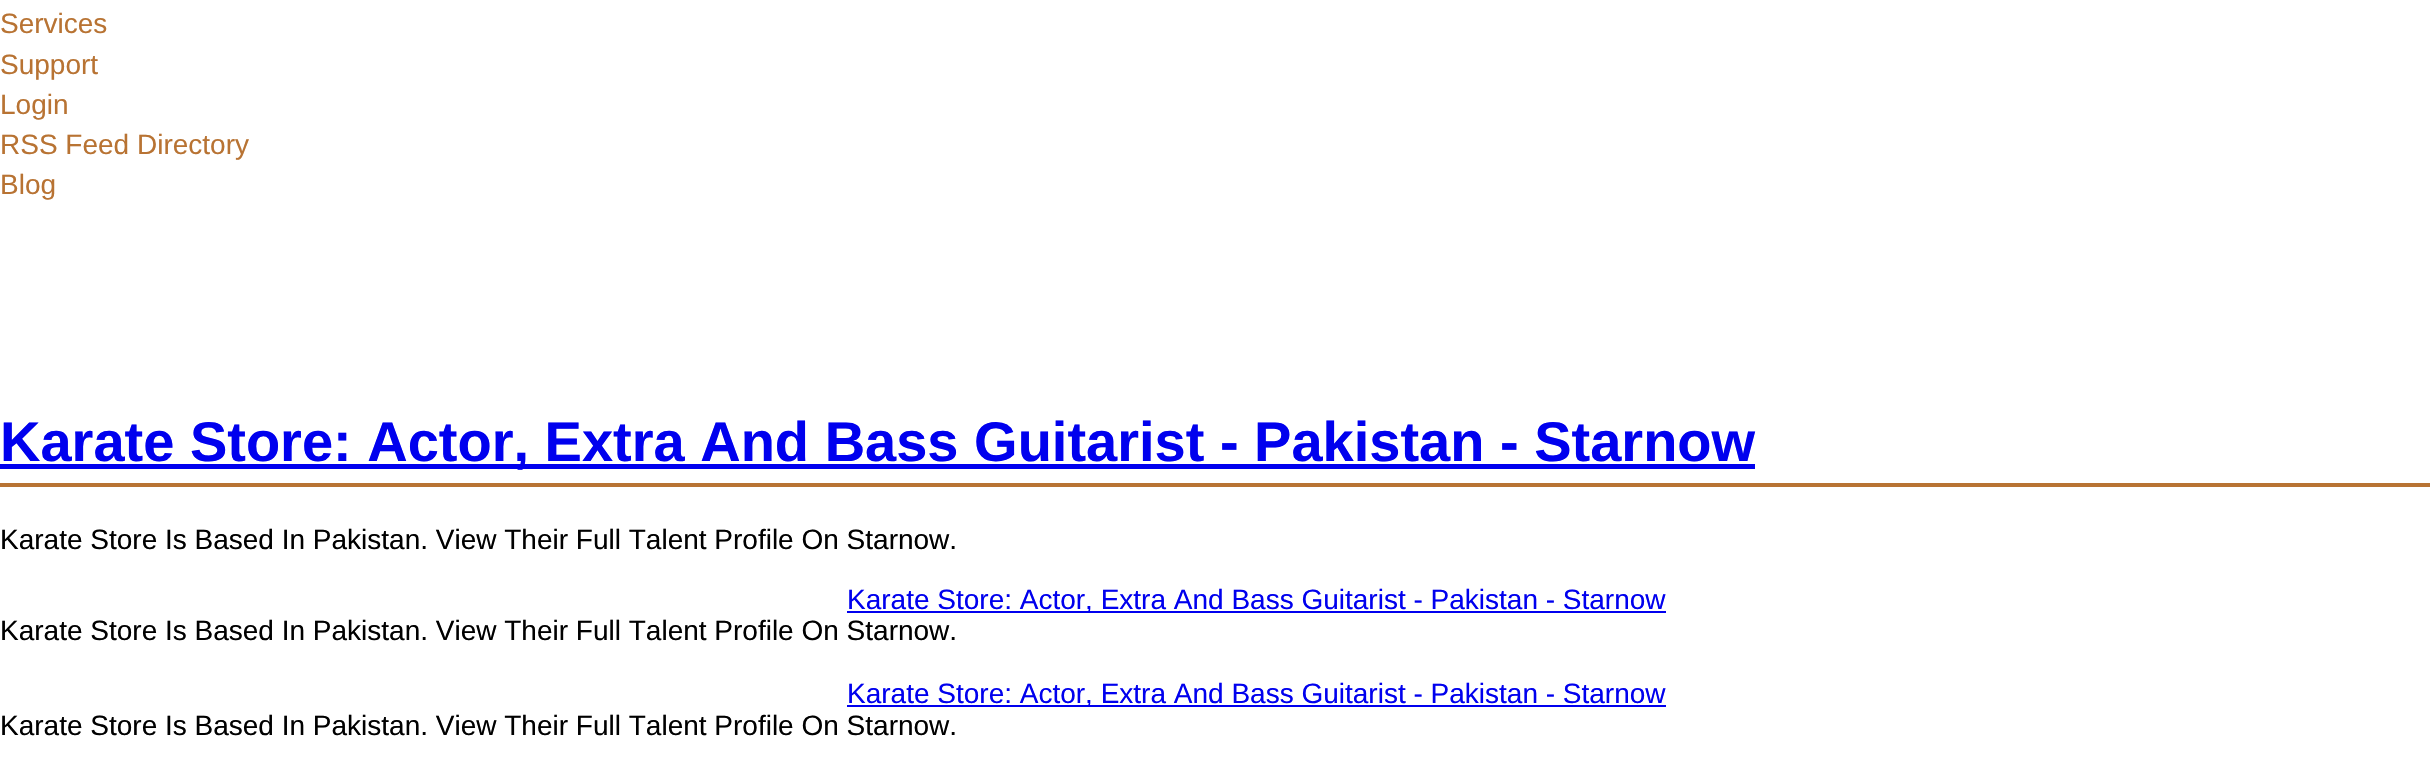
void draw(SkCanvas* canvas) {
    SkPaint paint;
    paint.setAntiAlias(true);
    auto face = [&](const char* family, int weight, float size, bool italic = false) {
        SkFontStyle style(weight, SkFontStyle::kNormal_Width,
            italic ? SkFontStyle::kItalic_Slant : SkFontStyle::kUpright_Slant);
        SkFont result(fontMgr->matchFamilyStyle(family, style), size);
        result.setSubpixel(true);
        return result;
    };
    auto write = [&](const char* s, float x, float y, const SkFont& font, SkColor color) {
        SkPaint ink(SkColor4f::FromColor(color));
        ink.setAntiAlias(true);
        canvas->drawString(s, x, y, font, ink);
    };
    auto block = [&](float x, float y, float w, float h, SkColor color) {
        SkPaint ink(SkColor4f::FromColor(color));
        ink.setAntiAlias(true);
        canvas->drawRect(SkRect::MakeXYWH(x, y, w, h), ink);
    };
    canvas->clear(SK_ColorWHITE);
    auto kFont1 = face("Liberation Sans", 400, 28);
    write("Services", 0, 33, kFont1, SkColorSetRGB(184, 115, 51));
    write("Support", 0, 74, kFont1, SkColorSetRGB(184, 115, 51));
    write("Login", 0, 114, kFont1, SkColorSetRGB(184, 115, 51));
    write("RSS Feed Directory", 0, 154, kFont1, SkColorSetRGB(184, 115, 51));
    write("Blog", 0, 194, kFont1, SkColorSetRGB(184, 115, 51));
    block(0, 483, 2430, 4, SkColorSetRGB(184, 115, 51));
    block(0, 464, 1755, 5, SkColorSetRGB(0, 0, 238));
    auto kFont2 = face("Liberation Sans", 700, 56);
    write("Karate Store: Actor, Extra And Bass Guitarist - Pakistan - Starnow", 0, 461, kFont2, SkColorSetRGB(0, 0, 238));
    write("Karate Store Is Based In Pakistan. View Their Full Talent Profile On Starnow.", 0, 549, kFont1, SK_ColorBLACK);
    block(847, 611, 819, 2, SkColorSetRGB(0, 0, 238));
    write("Karate Store: Actor, Extra And Bass Guitarist - Pakistan - Starnow", 847, 609, kFont1, SkColorSetRGB(0, 0, 238));
    write("Karate Store Is Based In Pakistan. View Their Full Talent Profile On Starnow.", 0, 640, kFont1, SK_ColorBLACK);
    block(847, 705, 819, 2, SkColorSetRGB(0, 0, 238));
    write("Karate Store: Actor, Extra And Bass Guitarist - Pakistan - Starnow", 847, 703, kFont1, SkColorSetRGB(0, 0, 238));
    write("Karate Store Is Based In Pakistan. View Their Full Talent Profile On Starnow.", 0, 735, kFont1, SK_ColorBLACK);
}
